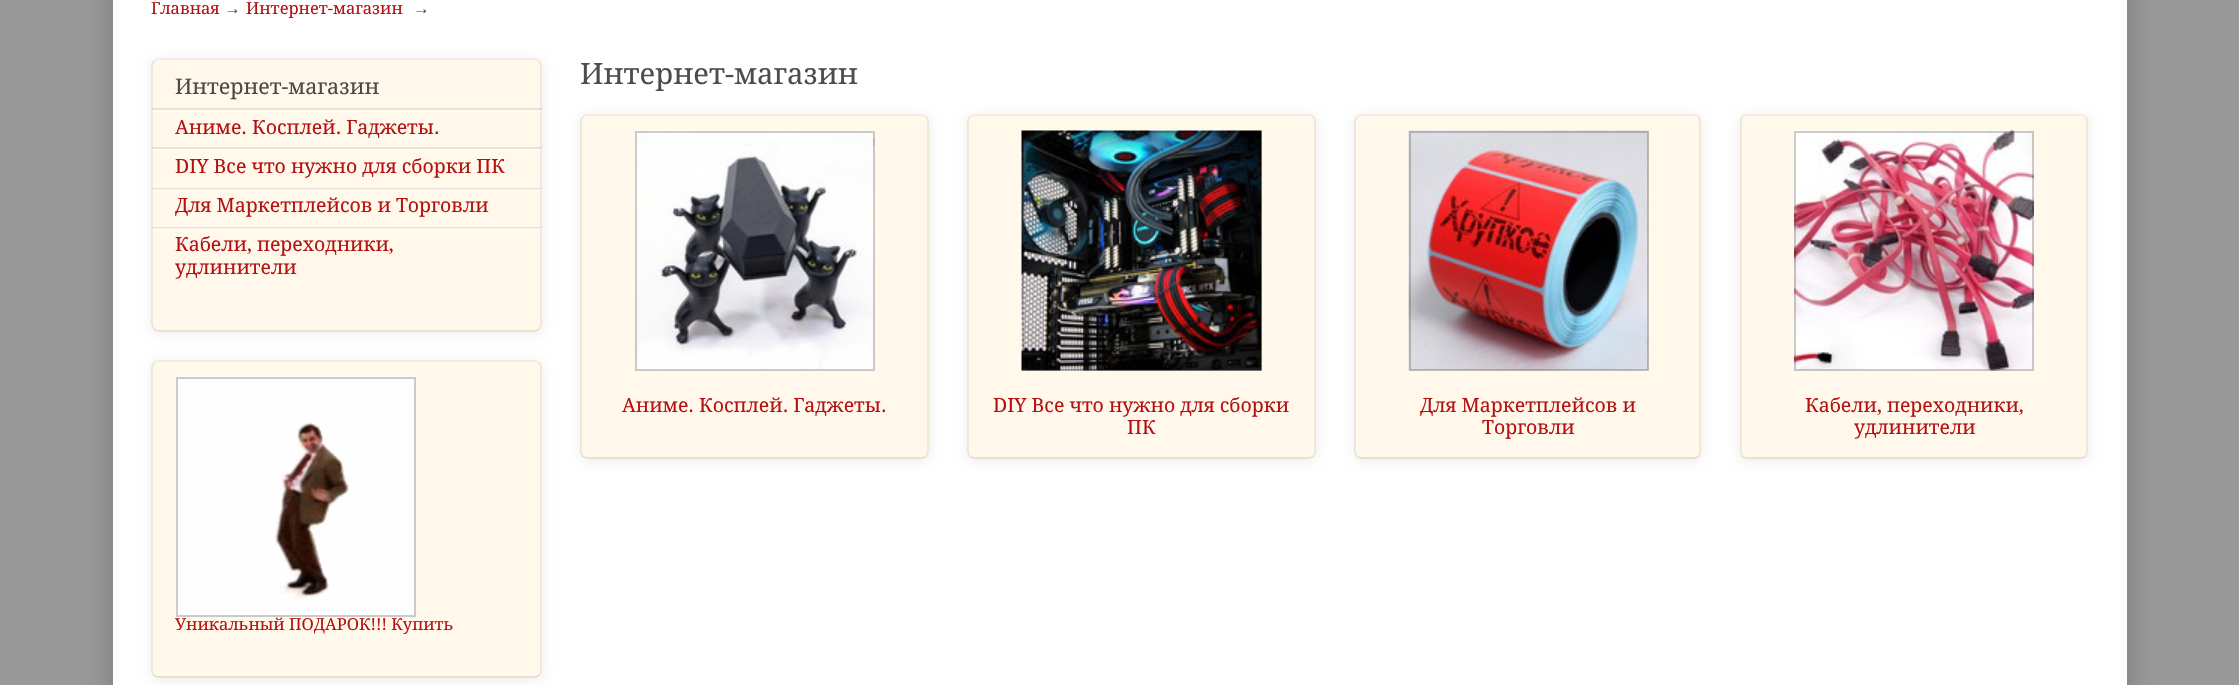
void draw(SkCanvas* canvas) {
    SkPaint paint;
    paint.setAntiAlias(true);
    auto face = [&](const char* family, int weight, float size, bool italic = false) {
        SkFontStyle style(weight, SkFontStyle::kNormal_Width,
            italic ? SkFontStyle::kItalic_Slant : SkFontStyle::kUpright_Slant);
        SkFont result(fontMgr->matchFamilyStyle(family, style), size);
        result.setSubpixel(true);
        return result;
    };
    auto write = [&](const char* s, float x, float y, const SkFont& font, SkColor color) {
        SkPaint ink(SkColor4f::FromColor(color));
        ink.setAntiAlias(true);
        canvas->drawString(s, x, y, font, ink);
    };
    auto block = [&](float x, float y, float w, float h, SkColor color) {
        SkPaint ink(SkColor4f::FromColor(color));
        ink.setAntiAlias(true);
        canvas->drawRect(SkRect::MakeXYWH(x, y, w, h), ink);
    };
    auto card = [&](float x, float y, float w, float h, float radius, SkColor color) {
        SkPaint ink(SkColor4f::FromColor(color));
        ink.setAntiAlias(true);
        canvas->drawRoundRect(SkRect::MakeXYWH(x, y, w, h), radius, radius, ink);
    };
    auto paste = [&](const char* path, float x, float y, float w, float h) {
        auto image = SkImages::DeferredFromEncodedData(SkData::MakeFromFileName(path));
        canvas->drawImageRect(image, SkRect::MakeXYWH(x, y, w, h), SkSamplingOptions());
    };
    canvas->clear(SkColorSetRGB(153, 153, 153));
    paint.setColor(SkColorSetARGB(51, 0, 0, 0));
    paint.setMaskFilter(SkMaskFilter::MakeBlur(kNormal_SkBlurStyle, 15));
    canvas->drawRoundRect(SkRect::MakeXYWH(113, -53, 2014, 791), 8, 8, paint);
    paint.setMaskFilter(nullptr);
    block(113, 0, 2014, 685, SK_ColorWHITE);
    auto kFont1 = face("Droid Serif", 400, 16.5f);
    write("Главная", 151, 14, kFont1, SkColorSetRGB(179, 18, 18));
    auto kFont2 = face("Liberation Serif", 400, 16.5f);
    write("→", 224, 14, kFont2, SkColorSetRGB(77, 77, 77));
    write("Интернет-магазин", 246, 14, kFont1, SkColorSetRGB(179, 18, 18));
    write("→", 413, 14, kFont2, SkColorSetRGB(77, 77, 77));
    canvas->save();
    canvas->clipPath(SkPathBuilder(SkPathFillType::kEvenOdd).moveTo(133, 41).lineTo(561, 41).lineTo(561, 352).lineTo(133, 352).close().moveTo(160, 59).lineTo(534, 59).cubicTo(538.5f, 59, 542, 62.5f, 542, 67).lineTo(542, 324).cubicTo(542, 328.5f, 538.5f, 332, 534, 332).lineTo(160, 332).cubicTo(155.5f, 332, 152, 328.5f, 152, 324).lineTo(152, 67).cubicTo(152, 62.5f, 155.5f, 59, 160, 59).close().detach(), true);
    paint.setColor(SkColorSetARGB(20, 0, 0, 0));
    paint.setMaskFilter(SkMaskFilter::MakeBlur(kNormal_SkBlurStyle, 6));
    canvas->drawRoundRect(SkRect::MakeXYWH(152, 60, 390, 273), 8, 8, paint);
    paint.setMaskFilter(nullptr);
    canvas->restore();
    card(152, 59, 390, 273, 8, SkColorSetARGB(20, 255, 160, 0));
    paint.setStyle(SkPaint::kStroke_Style);
    paint.setStrokeWidth(1.5f);
    paint.setColor(SkColorSetARGB(18, 54, 35, 0));
    canvas->drawPath(SkPathBuilder().moveTo(154, 61).cubicTo(155.5f, 60, 157, 59, 159, 59).lineTo(534, 59).cubicTo(536, 59, 537.5f, 60, 539, 61).detach(), paint);
    paint.setColor(SkColorSetARGB(26, 54, 35, 0));
    canvas->drawPath(SkPathBuilder().moveTo(539, 61).cubicTo(540, 62.5f, 541, 64, 541, 66).lineTo(541, 324).cubicTo(541, 326, 540, 327.5f, 539, 329).detach(), paint);
    paint.setColor(SkColorSetARGB(38, 54, 35, 0));
    canvas->drawPath(SkPathBuilder().moveTo(539, 329).cubicTo(537.5f, 330, 536, 331, 534, 331).lineTo(159, 331).cubicTo(157, 331, 155.5f, 330, 154, 329).detach(), paint);
    paint.setColor(SkColorSetARGB(26, 54, 35, 0));
    canvas->drawPath(SkPathBuilder().moveTo(154, 329).cubicTo(153, 327.5f, 152, 326, 152, 324).lineTo(152, 66).cubicTo(152, 64, 153, 62.5f, 154, 61).detach(), paint);
    auto kFont3 = face("Droid Serif", 400, 21.5f);
    write("Интернет-магазин", 175, 94, kFont3, SkColorSetRGB(77, 74, 70));
    block(152, 108, 390, 2, SkColorSetARGB(26, 54, 35, 0));
    block(152, 110, 390, 2, SkColorSetARGB(128, 255, 255, 255));
    auto kFont4 = face("Droid Serif", 400, 19.5f);
    write("Аниме. Косплей. Гаджеты.", 175, 134, kFont4, SkColorSetRGB(179, 18, 18));
    block(152, 147, 390, 2, SkColorSetARGB(26, 54, 35, 0));
    block(152, 149, 390, 2, SkColorSetARGB(128, 255, 255, 255));
    write("DIY Все что нужно для сборки ПК", 175, 173, kFont4, SkColorSetRGB(179, 18, 18));
    block(152, 188, 390, 2, SkColorSetARGB(26, 54, 35, 0));
    block(152, 189, 390, 2, SkColorSetARGB(128, 255, 255, 255));
    write("Для Маркетплейсов и Торговли", 175, 212, kFont4, SkColorSetRGB(179, 18, 18));
    block(152, 227, 390, 2, SkColorSetARGB(26, 54, 35, 0));
    block(152, 228, 390, 2, SkColorSetARGB(128, 255, 255, 255));
    write("Кабели, переходники,", 175, 251, kFont4, SkColorSetRGB(179, 18, 18));
    write("удлинители", 175, 274, kFont4, SkColorSetRGB(179, 18, 18));
    canvas->save();
    canvas->clipPath(SkPathBuilder(SkPathFillType::kEvenOdd).moveTo(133, 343).lineTo(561, 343).lineTo(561, 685).lineTo(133, 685).close().moveTo(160, 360).lineTo(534, 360).cubicTo(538.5f, 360, 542, 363.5f, 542, 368).lineTo(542, 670).cubicTo(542, 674.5f, 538.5f, 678, 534, 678).lineTo(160, 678).cubicTo(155.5f, 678, 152, 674.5f, 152, 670).lineTo(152, 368).cubicTo(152, 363.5f, 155.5f, 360, 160, 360).close().detach(), true);
    paint.setStyle(SkPaint::kFill_Style);
    paint.setColor(SkColorSetARGB(20, 0, 0, 0));
    paint.setMaskFilter(SkMaskFilter::MakeBlur(kNormal_SkBlurStyle, 6));
    canvas->drawRoundRect(SkRect::MakeXYWH(152, 362, 390, 318), 8, 8, paint);
    paint.setMaskFilter(nullptr);
    canvas->restore();
    card(152, 360, 390, 318, 8, SkColorSetARGB(20, 255, 160, 0));
    paint.setStyle(SkPaint::kStroke_Style);
    paint.setColor(SkColorSetARGB(18, 54, 35, 0));
    canvas->drawPath(SkPathBuilder().moveTo(154, 362.5f).cubicTo(155.5f, 361.5f, 157, 361, 159, 361).lineTo(534, 361).cubicTo(536, 361, 537.5f, 361.5f, 539, 362.5f).detach(), paint);
    paint.setColor(SkColorSetARGB(26, 54, 35, 0));
    canvas->drawPath(SkPathBuilder().moveTo(539, 362.5f).cubicTo(540, 364, 541, 365.5f, 541, 367.5f).lineTo(541, 670.5f).cubicTo(541, 672.5f, 540, 674, 539, 675.5f).detach(), paint);
    paint.setColor(SkColorSetARGB(38, 54, 35, 0));
    canvas->drawPath(SkPathBuilder().moveTo(539, 675.5f).cubicTo(537.5f, 676.5f, 536, 677, 534, 677).lineTo(159, 677).cubicTo(157, 677, 155.5f, 676.5f, 154, 675.5f).detach(), paint);
    paint.setColor(SkColorSetARGB(26, 54, 35, 0));
    canvas->drawPath(SkPathBuilder().moveTo(154, 675.5f).cubicTo(153, 674, 152, 672.5f, 152, 670.5f).lineTo(152, 367.5f).cubicTo(152, 365.5f, 153, 364, 154, 362.5f).detach(), paint);
    paste("pic1.png", 175, 376, 241, 241);
    paint.setStrokeWidth(2);
    paint.setColor(SkColorSetARGB(51, 0, 0, 0));
    canvas->drawRect(SkRect::MakeXYWH(177, 378, 238, 238), paint);
    write("Уникальный ПОДАРОК!!! Купить", 175, 630, kFont1, SkColorSetRGB(179, 18, 18));
    auto kFont5 = face("Droid Serif", 400, 29.25f);
    write("Интернет-магазин", 580, 84, kFont5, SkColorSetRGB(77, 77, 77));
    canvas->save();
    canvas->clipPath(SkPathBuilder(SkPathFillType::kEvenOdd).moveTo(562, 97).lineTo(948, 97).lineTo(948, 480).lineTo(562, 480).close().moveTo(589, 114).lineTo(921, 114).cubicTo(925.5f, 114, 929, 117.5f, 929, 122).lineTo(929, 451).cubicTo(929, 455.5f, 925.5f, 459, 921, 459).lineTo(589, 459).cubicTo(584.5f, 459, 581, 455.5f, 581, 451).lineTo(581, 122).cubicTo(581, 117.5f, 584.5f, 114, 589, 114).close().detach(), true);
    paint.setStyle(SkPaint::kFill_Style);
    paint.setColor(SkColorSetARGB(20, 0, 0, 0));
    paint.setMaskFilter(SkMaskFilter::MakeBlur(kNormal_SkBlurStyle, 6));
    canvas->drawRoundRect(SkRect::MakeXYWH(581, 116, 348, 345), 8, 8, paint);
    paint.setMaskFilter(nullptr);
    canvas->restore();
    card(581, 114, 348, 345, 8, SkColorSetARGB(20, 255, 160, 0));
    paint.setStyle(SkPaint::kStroke_Style);
    paint.setStrokeWidth(1.5f);
    paint.setColor(SkColorSetARGB(18, 54, 35, 0));
    canvas->drawPath(SkPathBuilder().moveTo(583, 116.5f).cubicTo(584.5f, 115.5f, 586, 115, 588, 115).lineTo(921, 115).cubicTo(923, 115, 924.5f, 115.5f, 926, 116.5f).detach(), paint);
    paint.setColor(SkColorSetARGB(26, 54, 35, 0));
    canvas->drawPath(SkPathBuilder().moveTo(926, 116.5f).cubicTo(927, 118, 928, 119.5f, 928, 121.5f).lineTo(928, 451.5f).cubicTo(928, 453.5f, 927, 455, 926, 456.5f).detach(), paint);
    paint.setColor(SkColorSetARGB(38, 54, 35, 0));
    canvas->drawPath(SkPathBuilder().moveTo(926, 456.5f).cubicTo(924.5f, 457.5f, 923, 458, 921, 458).lineTo(588, 458).cubicTo(586, 458, 584.5f, 457.5f, 583, 456.5f).detach(), paint);
    paint.setColor(SkColorSetARGB(26, 54, 35, 0));
    canvas->drawPath(SkPathBuilder().moveTo(583, 456.5f).cubicTo(582, 455, 581, 453.5f, 581, 451.5f).lineTo(581, 121.5f).cubicTo(581, 119.5f, 582, 118, 583, 116.5f).detach(), paint);
    paste("pic2.png", 634, 130, 241, 241);
    paint.setStrokeWidth(2);
    paint.setColor(SkColorSetARGB(51, 0, 0, 0));
    canvas->drawRect(SkRect::MakeXYWH(636, 132, 238, 238), paint);
    write("Аниме. Косплей. Гаджеты.", 622, 412, kFont4, SkColorSetRGB(179, 18, 18));
    canvas->save();
    canvas->clipPath(SkPathBuilder(SkPathFillType::kEvenOdd).moveTo(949, 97).lineTo(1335, 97).lineTo(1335, 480).lineTo(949, 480).close().moveTo(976, 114).lineTo(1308, 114).cubicTo(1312.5f, 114, 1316, 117.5f, 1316, 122).lineTo(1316, 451).cubicTo(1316, 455.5f, 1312.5f, 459, 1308, 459).lineTo(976, 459).cubicTo(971.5f, 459, 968, 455.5f, 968, 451).lineTo(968, 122).cubicTo(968, 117.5f, 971.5f, 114, 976, 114).close().detach(), true);
    paint.setStyle(SkPaint::kFill_Style);
    paint.setColor(SkColorSetARGB(20, 0, 0, 0));
    paint.setMaskFilter(SkMaskFilter::MakeBlur(kNormal_SkBlurStyle, 6));
    canvas->drawRoundRect(SkRect::MakeXYWH(968, 116, 348, 345), 8, 8, paint);
    paint.setMaskFilter(nullptr);
    canvas->restore();
    card(968, 114, 348, 345, 8, SkColorSetARGB(20, 255, 160, 0));
    paint.setStyle(SkPaint::kStroke_Style);
    paint.setStrokeWidth(1.5f);
    paint.setColor(SkColorSetARGB(18, 54, 35, 0));
    canvas->drawPath(SkPathBuilder().moveTo(970, 116.5f).cubicTo(971.5f, 115.5f, 973, 115, 975, 115).lineTo(1308, 115).cubicTo(1310, 115, 1311.5f, 115.5f, 1313, 116.5f).detach(), paint);
    paint.setColor(SkColorSetARGB(26, 54, 35, 0));
    canvas->drawPath(SkPathBuilder().moveTo(1313, 116.5f).cubicTo(1314, 118, 1315, 119.5f, 1315, 121.5f).lineTo(1315, 451.5f).cubicTo(1315, 453.5f, 1314, 455, 1313, 456.5f).detach(), paint);
    paint.setColor(SkColorSetARGB(38, 54, 35, 0));
    canvas->drawPath(SkPathBuilder().moveTo(1313, 456.5f).cubicTo(1311.5f, 457.5f, 1310, 458, 1308, 458).lineTo(975, 458).cubicTo(973, 458, 971.5f, 457.5f, 970, 456.5f).detach(), paint);
    paint.setColor(SkColorSetARGB(26, 54, 35, 0));
    canvas->drawPath(SkPathBuilder().moveTo(970, 456.5f).cubicTo(969, 455, 968, 453.5f, 968, 451.5f).lineTo(968, 121.5f).cubicTo(968, 119.5f, 969, 118, 970, 116.5f).detach(), paint);
    paste("pic3.png", 1021, 130, 241, 241);
    paint.setStrokeWidth(2);
    paint.setColor(SkColorSetARGB(51, 0, 0, 0));
    canvas->drawRect(SkRect::MakeXYWH(1023, 132, 238, 238), paint);
    write("DIY Все что нужно для сборки", 993, 412, kFont4, SkColorSetRGB(179, 18, 18));
    write("ПК", 1127, 434, kFont4, SkColorSetRGB(179, 18, 18));
    canvas->save();
    canvas->clipPath(SkPathBuilder(SkPathFillType::kEvenOdd).moveTo(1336, 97).lineTo(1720, 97).lineTo(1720, 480).lineTo(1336, 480).close().moveTo(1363, 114).lineTo(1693, 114).cubicTo(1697.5f, 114, 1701, 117.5f, 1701, 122).lineTo(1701, 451).cubicTo(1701, 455.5f, 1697.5f, 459, 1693, 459).lineTo(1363, 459).cubicTo(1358.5f, 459, 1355, 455.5f, 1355, 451).lineTo(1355, 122).cubicTo(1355, 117.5f, 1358.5f, 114, 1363, 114).close().detach(), true);
    paint.setStyle(SkPaint::kFill_Style);
    paint.setColor(SkColorSetARGB(20, 0, 0, 0));
    paint.setMaskFilter(SkMaskFilter::MakeBlur(kNormal_SkBlurStyle, 6));
    canvas->drawRoundRect(SkRect::MakeXYWH(1355, 116, 346, 345), 8, 8, paint);
    paint.setMaskFilter(nullptr);
    canvas->restore();
    card(1355, 114, 346, 345, 8, SkColorSetARGB(20, 255, 160, 0));
    paint.setStyle(SkPaint::kStroke_Style);
    paint.setStrokeWidth(1.5f);
    paint.setColor(SkColorSetARGB(18, 54, 35, 0));
    canvas->drawPath(SkPathBuilder().moveTo(1357, 116.5f).cubicTo(1358.5f, 115.5f, 1360, 115, 1362, 115).lineTo(1693.5f, 115).cubicTo(1695.5f, 115, 1697, 115.5f, 1698.5f, 116.5f).detach(), paint);
    paint.setColor(SkColorSetARGB(26, 54, 35, 0));
    canvas->drawPath(SkPathBuilder().moveTo(1698.5f, 116.5f).cubicTo(1699.5f, 118, 1700, 119.5f, 1700, 121.5f).lineTo(1700, 451.5f).cubicTo(1700, 453.5f, 1699.5f, 455, 1698.5f, 456.5f).detach(), paint);
    paint.setColor(SkColorSetARGB(38, 54, 35, 0));
    canvas->drawPath(SkPathBuilder().moveTo(1698.5f, 456.5f).cubicTo(1697, 457.5f, 1695.5f, 458, 1693.5f, 458).lineTo(1362, 458).cubicTo(1360, 458, 1358.5f, 457.5f, 1357, 456.5f).detach(), paint);
    paint.setColor(SkColorSetARGB(26, 54, 35, 0));
    canvas->drawPath(SkPathBuilder().moveTo(1357, 456.5f).cubicTo(1356, 455, 1355, 453.5f, 1355, 451.5f).lineTo(1355, 121.5f).cubicTo(1355, 119.5f, 1356, 118, 1357, 116.5f).detach(), paint);
    paste("pic4.png", 1408, 130, 241, 241);
    paint.setStrokeWidth(2);
    paint.setColor(SkColorSetARGB(51, 0, 0, 0));
    canvas->drawRect(SkRect::MakeXYWH(1410, 132, 238, 238), paint);
    write("Для Маркетплейсов и", 1420, 412, kFont4, SkColorSetRGB(179, 18, 18));
    write("Торговли", 1482, 434, kFont4, SkColorSetRGB(179, 18, 18));
    canvas->save();
    canvas->clipPath(SkPathBuilder(SkPathFillType::kEvenOdd).moveTo(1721, 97).lineTo(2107, 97).lineTo(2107, 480).lineTo(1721, 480).close().moveTo(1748, 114).lineTo(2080, 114).cubicTo(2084.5f, 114, 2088, 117.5f, 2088, 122).lineTo(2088, 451).cubicTo(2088, 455.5f, 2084.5f, 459, 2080, 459).lineTo(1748, 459).cubicTo(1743.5f, 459, 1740, 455.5f, 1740, 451).lineTo(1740, 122).cubicTo(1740, 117.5f, 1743.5f, 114, 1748, 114).close().detach(), true);
    paint.setStyle(SkPaint::kFill_Style);
    paint.setColor(SkColorSetARGB(20, 0, 0, 0));
    paint.setMaskFilter(SkMaskFilter::MakeBlur(kNormal_SkBlurStyle, 6));
    canvas->drawRoundRect(SkRect::MakeXYWH(1740, 116, 348, 345), 8, 8, paint);
    paint.setMaskFilter(nullptr);
    canvas->restore();
    card(1740, 114, 348, 345, 8, SkColorSetARGB(20, 255, 160, 0));
    paint.setStyle(SkPaint::kStroke_Style);
    paint.setStrokeWidth(1.5f);
    paint.setColor(SkColorSetARGB(18, 54, 35, 0));
    canvas->drawPath(SkPathBuilder().moveTo(1742.5f, 116.5f).cubicTo(1744, 115.5f, 1745.5f, 115, 1747.5f, 115).lineTo(2080.5f, 115).cubicTo(2082.5f, 115, 2084, 115.5f, 2085.5f, 116.5f).detach(), paint);
    paint.setColor(SkColorSetARGB(26, 54, 35, 0));
    canvas->drawPath(SkPathBuilder().moveTo(2085.5f, 116.5f).cubicTo(2086.5f, 118, 2087, 119.5f, 2087, 121.5f).lineTo(2087, 451.5f).cubicTo(2087, 453.5f, 2086.5f, 455, 2085.5f, 456.5f).detach(), paint);
    paint.setColor(SkColorSetARGB(38, 54, 35, 0));
    canvas->drawPath(SkPathBuilder().moveTo(2085.5f, 456.5f).cubicTo(2084, 457.5f, 2082.5f, 458, 2080.5f, 458).lineTo(1747.5f, 458).cubicTo(1745.5f, 458, 1744, 457.5f, 1742.5f, 456.5f).detach(), paint);
    paint.setColor(SkColorSetARGB(26, 54, 35, 0));
    canvas->drawPath(SkPathBuilder().moveTo(1742.5f, 456.5f).cubicTo(1741.5f, 455, 1741, 453.5f, 1741, 451.5f).lineTo(1741, 121.5f).cubicTo(1741, 119.5f, 1741.5f, 118, 1742.5f, 116.5f).detach(), paint);
    paste("pic5.png", 1794, 130, 240, 241);
    paint.setStrokeWidth(2);
    paint.setColor(SkColorSetARGB(51, 0, 0, 0));
    canvas->drawRect(SkRect::MakeXYWH(1795, 132, 238, 238), paint);
    write("Кабели, переходники,", 1805, 412, kFont4, SkColorSetRGB(179, 18, 18));
    write("удлинители", 1854, 434, kFont4, SkColorSetRGB(179, 18, 18));
}
